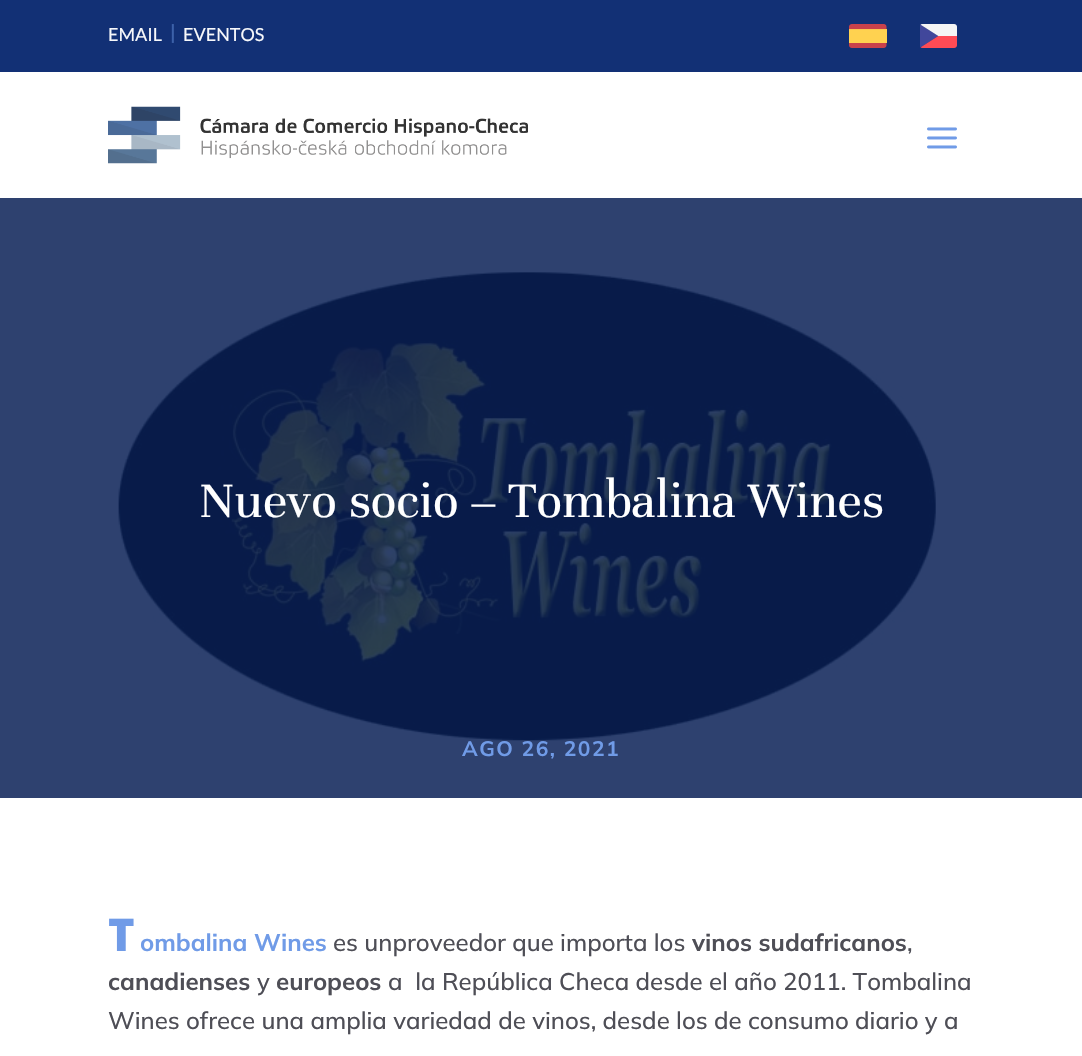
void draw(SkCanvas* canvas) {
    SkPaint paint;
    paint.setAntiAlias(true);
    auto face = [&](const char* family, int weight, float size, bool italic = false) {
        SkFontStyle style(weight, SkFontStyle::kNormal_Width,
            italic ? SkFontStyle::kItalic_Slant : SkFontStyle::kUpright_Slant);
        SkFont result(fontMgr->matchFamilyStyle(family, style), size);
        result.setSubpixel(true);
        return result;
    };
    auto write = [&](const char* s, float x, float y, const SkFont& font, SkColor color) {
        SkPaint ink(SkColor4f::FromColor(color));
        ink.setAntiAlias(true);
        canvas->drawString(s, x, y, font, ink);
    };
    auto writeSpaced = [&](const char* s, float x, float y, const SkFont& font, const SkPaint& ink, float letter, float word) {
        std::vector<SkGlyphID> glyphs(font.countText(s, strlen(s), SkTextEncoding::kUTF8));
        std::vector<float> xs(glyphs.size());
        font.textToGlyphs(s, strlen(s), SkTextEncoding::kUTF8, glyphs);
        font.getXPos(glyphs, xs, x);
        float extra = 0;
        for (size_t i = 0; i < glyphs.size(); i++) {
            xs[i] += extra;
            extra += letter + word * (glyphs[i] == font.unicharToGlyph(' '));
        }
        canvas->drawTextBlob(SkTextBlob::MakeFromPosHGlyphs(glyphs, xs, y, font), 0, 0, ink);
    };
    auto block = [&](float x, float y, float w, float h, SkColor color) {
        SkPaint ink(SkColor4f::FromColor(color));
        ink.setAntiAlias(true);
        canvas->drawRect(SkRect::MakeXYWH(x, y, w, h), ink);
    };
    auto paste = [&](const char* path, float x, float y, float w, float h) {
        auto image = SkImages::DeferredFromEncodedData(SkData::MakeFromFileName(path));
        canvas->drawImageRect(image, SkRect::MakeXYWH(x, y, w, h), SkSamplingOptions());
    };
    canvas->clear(SK_ColorWHITE);
    block(0, 198, 1082, 600, SkColorSetRGB(46, 65, 111));
    block(0, 0, 1082, 72, SkColorSetRGB(18, 48, 117));
    auto kFont1 = face("Lato", 400, 18);
    write("EMAIL", 108, 41, kFont1, SkColorSetRGB(247, 248, 251));
    auto kFont2 = face("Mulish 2", 200, 21);
    write("|", 170, 39, kFont2, SkColorSetRGB(60, 97, 169));
    write("EVENTOS", 183, 41, kFont1, SkColorSetRGB(247, 248, 251));
    paste("pic1.png", 849, 24, 38, 24);
    paste("pic2.png", 920, 24, 37, 24);
    paste("pic3.png", 108, 106, 420, 58);
    paste("pic4.png", 927, 127, 30, 22);
    paste("pic5.png", 118, 271, 819, 470);
    auto kFont3 = face("Unna", 400, 54);
    write("Nuevo socio – Tombalina Wines", 199, 517, kFont3, SK_ColorWHITE);
    auto kFont4 = face("Mulish", 200, 21);
    paint.setColor(SkColorSetRGB(112, 155, 231));
    writeSpaced("AGO 26, 2021", 462, 756, kFont4, paint, 1.5f, 0);
    auto kFont5 = face("Noto Sans", 900, 45);
    write("T", 108, 951, kFont5, SkColorSetRGB(112, 155, 231));
    auto kFont6 = face("Mulish", 200, 24);
    write("ombalina Wines", 140, 951, kFont6, SkColorSetRGB(112, 155, 231));
    auto kFont7 = face("Mulish 2", 200, 24);
    write("es unproveedor que importa los", 333, 951, kFont7, SkColorSetRGB(78, 78, 86));
    write("vinos sudafricanos", 692, 951, kFont6, SkColorSetRGB(78, 78, 86));
    write(",", 907, 951, kFont7, SkColorSetRGB(78, 78, 86));
    write("canadienses", 108, 990, kFont6, SkColorSetRGB(78, 78, 86));
    write("y", 257, 990, kFont7, SkColorSetRGB(78, 78, 86));
    write("europeos", 276, 990, kFont6, SkColorSetRGB(78, 78, 86));
    write("a  la República Checa desde el año 2011. Tombalina", 388, 990, kFont7, SkColorSetRGB(78, 78, 86));
    write("Wines ofrece una amplia variedad de vinos, desde los de consumo diario y a", 108, 1029, kFont7, SkColorSetRGB(78, 78, 86));
}
